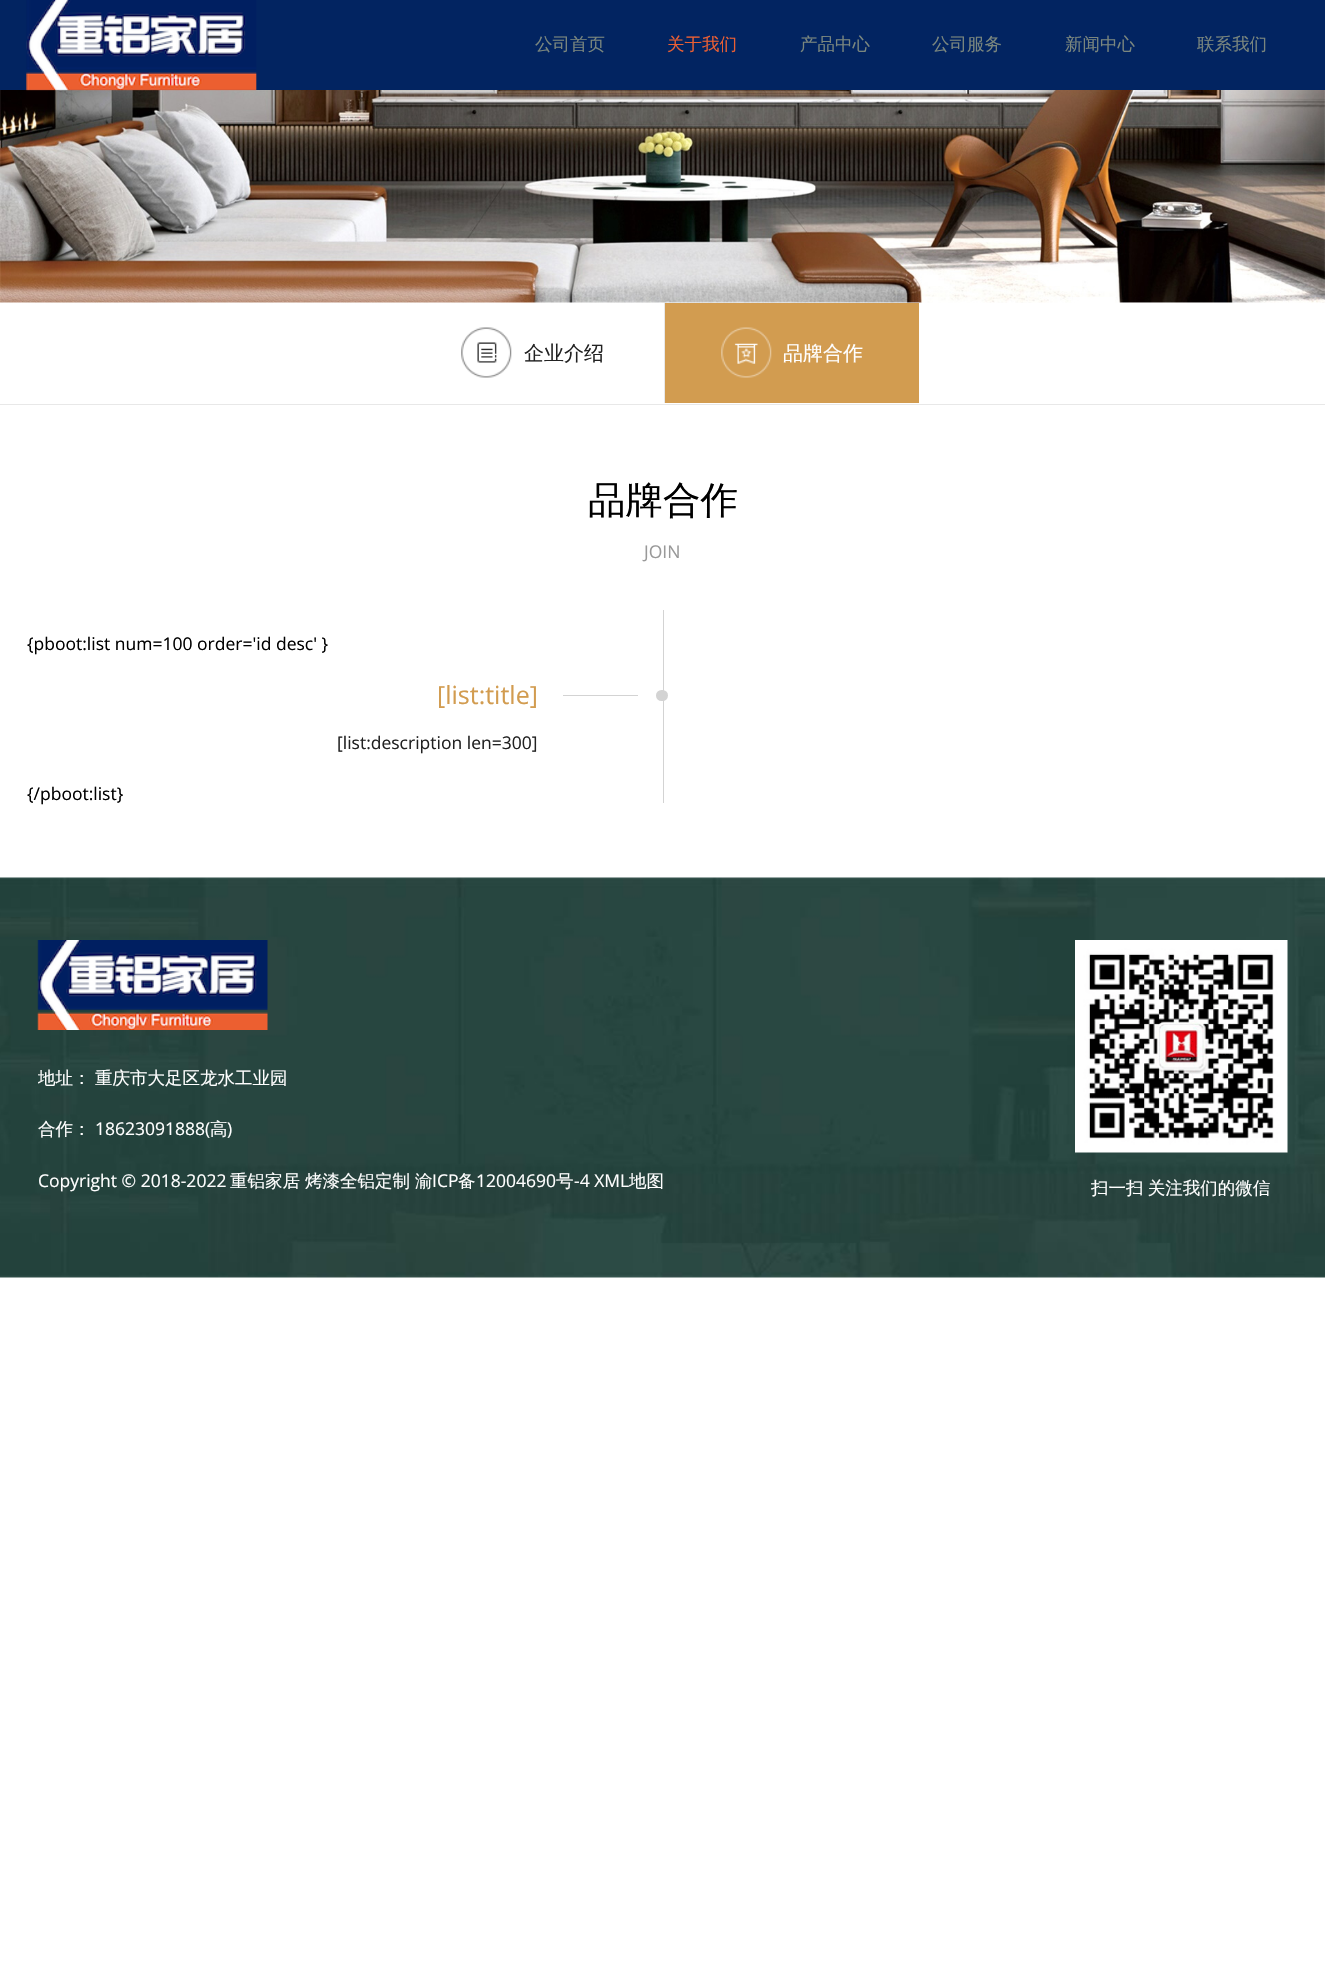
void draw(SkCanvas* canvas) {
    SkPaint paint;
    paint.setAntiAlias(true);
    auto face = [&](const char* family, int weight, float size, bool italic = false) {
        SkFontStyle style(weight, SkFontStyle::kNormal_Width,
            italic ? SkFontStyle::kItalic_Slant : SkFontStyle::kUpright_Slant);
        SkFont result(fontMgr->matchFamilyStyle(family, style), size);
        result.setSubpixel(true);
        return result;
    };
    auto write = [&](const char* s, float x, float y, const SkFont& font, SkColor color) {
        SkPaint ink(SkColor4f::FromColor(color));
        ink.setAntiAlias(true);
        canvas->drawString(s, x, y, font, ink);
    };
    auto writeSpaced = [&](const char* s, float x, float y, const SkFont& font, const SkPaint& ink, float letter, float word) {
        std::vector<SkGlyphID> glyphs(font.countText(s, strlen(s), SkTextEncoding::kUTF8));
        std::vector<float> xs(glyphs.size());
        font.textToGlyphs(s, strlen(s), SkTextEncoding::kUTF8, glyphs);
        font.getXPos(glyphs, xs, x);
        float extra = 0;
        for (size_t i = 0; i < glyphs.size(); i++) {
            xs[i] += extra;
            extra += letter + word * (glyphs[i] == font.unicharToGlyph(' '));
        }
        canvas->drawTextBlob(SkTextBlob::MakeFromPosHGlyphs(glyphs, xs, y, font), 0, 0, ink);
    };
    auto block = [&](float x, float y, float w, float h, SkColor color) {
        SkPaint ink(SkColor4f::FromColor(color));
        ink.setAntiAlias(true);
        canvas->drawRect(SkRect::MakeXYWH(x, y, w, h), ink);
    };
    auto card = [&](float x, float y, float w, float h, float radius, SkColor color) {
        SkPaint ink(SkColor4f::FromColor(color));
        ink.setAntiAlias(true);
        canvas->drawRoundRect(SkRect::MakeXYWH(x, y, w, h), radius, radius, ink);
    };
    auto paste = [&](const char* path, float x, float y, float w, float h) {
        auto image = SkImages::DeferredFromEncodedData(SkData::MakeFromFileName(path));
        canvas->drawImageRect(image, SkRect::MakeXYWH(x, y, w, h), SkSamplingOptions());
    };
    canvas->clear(SK_ColorWHITE);
    block(0, 0, 1325, 90, SkColorSetRGB(2, 36, 97));
    paste("pic2.png", 0, 90, 1325, 213);
    paste("pic1.png", 26, 0, 231, 91);
    auto kFont1 = face("WenQuanYi Zen Hei", 500, 17.5f);
    write("公司首页", 535, 50, kFont1, SkColorSetRGB(122, 134, 126));
    write("关于我们", 667, 50, kFont1, SkColorSetRGB(235, 95, 51));
    write("产品中心", 800, 50, kFont1, SkColorSetRGB(122, 134, 126));
    write("公司服务", 932, 50, kFont1, SkColorSetRGB(122, 134, 126));
    write("新闻中心", 1065, 50, kFont1, SkColorSetRGB(122, 134, 126));
    write("联系我们", 1197, 50, kFont1, SkColorSetRGB(122, 134, 126));
    block(0, 404, 1325, 1, SkColorSetRGB(232, 232, 232));
    paste("pic3.png", 461, 327, 51, 51);
    auto kFont2 = face("WenQuanYi Zen Hei", 500, 20);
    write("企业介绍", 524, 360, kFont2, SkColorSetRGB(34, 34, 34));
    block(665, 303, 254, 100, SkColorSetRGB(210, 156, 80));
    block(664, 303, 1, 100, SkColorSetRGB(232, 232, 232));
    paste("pic4.png", 721, 327, 51, 51);
    write("品牌合作", 783, 360, kFont2, SK_ColorWHITE);
    auto kFont3 = face("WenQuanYi Zen Hei", 500, 37.5f);
    write("品牌合作", 588, 513, kFont3, SK_ColorBLACK);
    auto kFont4 = face("Open Sans", 400, 17.5f);
    write("JOIN", 644, 558, kFont4, SkColorSetRGB(153, 153, 153));
    write("{pboot:list num=100 order='id desc' }", 27, 650, kFont4, SK_ColorBLACK);
    auto kFont5 = face("Open Sans", 400, 25);
    write("[list:title]", 437, 704, kFont5, SkColorSetRGB(210, 156, 80));
    write("[list:description len=300]", 337, 749, kFont4, SkColorSetRGB(34, 34, 34));
    block(663, 610, 1, 193, SkColorSetRGB(211, 211, 211));
    card(656, 690, 12, 11, 5.5f, SkColorSetRGB(211, 211, 211));
    block(563, 695, 75, 1, SkColorSetRGB(211, 211, 211));
    write("{/pboot:list}", 27, 800, kFont4, SK_ColorBLACK);
    paste("pic5.png", 0, 877, 1325, 401);
    paste("pic6.png", 37, 940, 231, 90);
    canvas->save();
    canvas->clipRect(SkRect::MakeXYWH(38, 940, 1037, 275));
    write("地址：", 38, 1084, kFont1, SK_ColorWHITE);
    canvas->restore();
    write("重庆市大足区龙水工业园", 95, 1084, kFont1, SK_ColorWHITE);
    write("合作：", 38, 1135, kFont1, SK_ColorWHITE);
    write("18623091888(", 95, 1135, kFont4, SK_ColorWHITE);
    write("高", 210, 1135, kFont1, SK_ColorWHITE);
    write(")", 227, 1135, kFont4, SK_ColorWHITE);
    write("Copyright © 2018-2022", 38, 1187, kFont4, SK_ColorWHITE);
    write("重铝家居", 230, 1187, kFont1, SK_ColorWHITE);
    write("烤漆全铝定制", 305, 1187, kFont1, SK_ColorWHITE);
    write("渝", 415, 1187, kFont1, SK_ColorWHITE);
    write("ICP", 432, 1187, kFont4, SK_ColorWHITE);
    write("备", 458, 1187, kFont1, SK_ColorWHITE);
    write("12004690", 476, 1187, kFont4, SK_ColorWHITE);
    write("号", 556, 1187, kFont1, SK_ColorWHITE);
    write("-4 XML", 574, 1187, kFont4, SK_ColorWHITE);
    write("地图", 629, 1187, kFont1, SK_ColorWHITE);
    paste("pic7.png", 1075, 940, 213, 213);
    paint.setColor(SK_ColorWHITE);
    writeSpaced("扫一扫 关注我们的微信", 1091, 1194, kFont1, paint, 0, -1);
}
